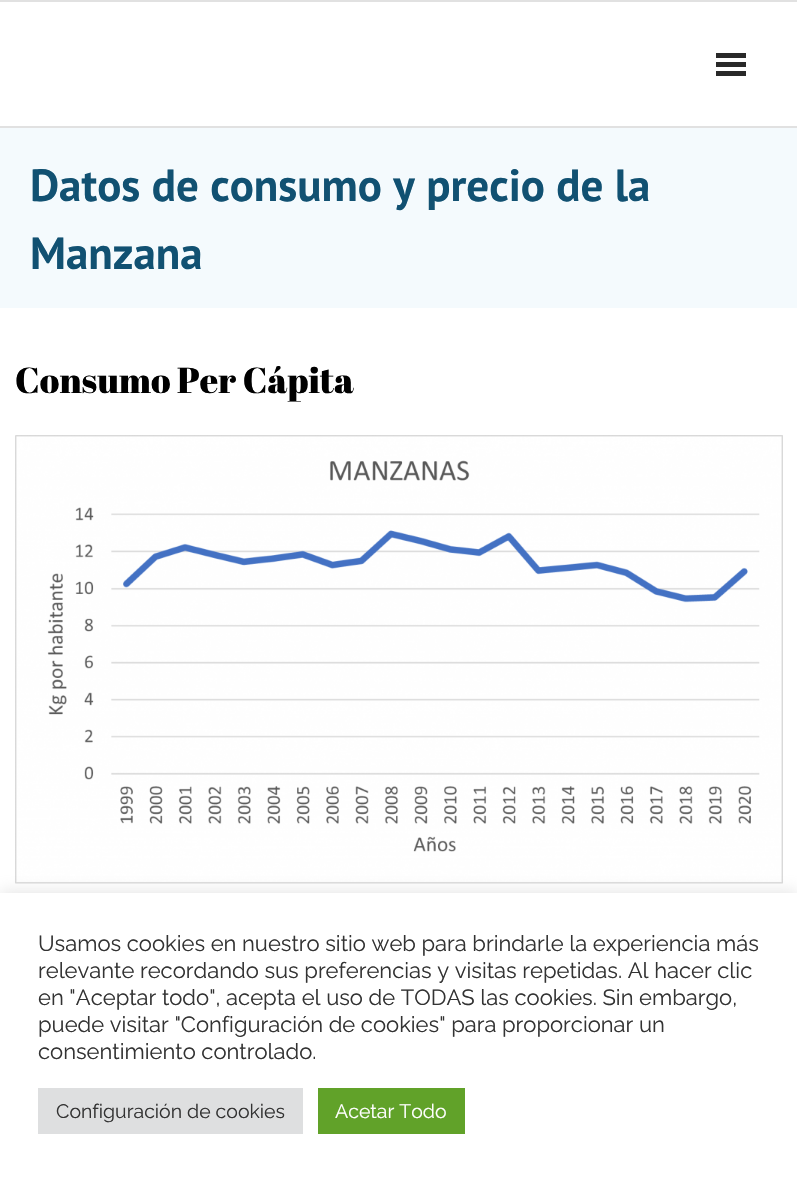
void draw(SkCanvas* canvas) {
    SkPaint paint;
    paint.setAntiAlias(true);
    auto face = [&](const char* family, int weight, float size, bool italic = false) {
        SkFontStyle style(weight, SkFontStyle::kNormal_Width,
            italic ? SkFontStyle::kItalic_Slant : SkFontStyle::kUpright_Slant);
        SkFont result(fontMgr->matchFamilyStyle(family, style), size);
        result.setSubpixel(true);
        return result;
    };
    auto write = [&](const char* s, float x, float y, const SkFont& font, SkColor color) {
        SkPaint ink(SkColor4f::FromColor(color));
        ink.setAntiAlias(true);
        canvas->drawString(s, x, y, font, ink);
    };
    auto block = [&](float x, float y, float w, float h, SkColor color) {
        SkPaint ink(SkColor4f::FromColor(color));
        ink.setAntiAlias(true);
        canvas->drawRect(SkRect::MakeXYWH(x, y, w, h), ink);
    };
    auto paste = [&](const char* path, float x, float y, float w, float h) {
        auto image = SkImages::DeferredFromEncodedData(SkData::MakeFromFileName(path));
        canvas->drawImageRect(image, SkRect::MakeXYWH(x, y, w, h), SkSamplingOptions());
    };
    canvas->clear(SK_ColorWHITE);
    block(0, 0, 797, 2, SkColorSetRGB(225, 225, 225));
    block(0, 126, 797, 2, SkColorSetRGB(225, 225, 225));
    block(716, 53, 30, 5, SkColorSetRGB(41, 41, 41));
    block(716, 62, 30, 5, SkColorSetRGB(41, 41, 41));
    block(716, 71, 30, 5, SkColorSetRGB(41, 41, 41));
    block(0, 128, 797, 180, SkColorSetRGB(244, 250, 253));
    auto kFont1 = face("PT Sans", 700, 45);
    write("Datos de consumo y precio de la", 30, 201, kFont1, SkColorSetRGB(17, 81, 114));
    write("Manzana", 30, 269, kFont1, SkColorSetRGB(17, 81, 114));
    auto kFont2 = face("Abril Fatface", 400, 36);
    write("Consumo Per Cápita", 15, 393, kFont2, SK_ColorBLACK);
    paste("pic1.png", 15, 435, 768, 449);
    paint.setColor(SkColorSetARGB(77, 172, 171, 171));
    paint.setMaskFilter(SkMaskFilter::MakeBlur(kNormal_SkBlurStyle, 7.5f));
    canvas->drawRect(SkRect::MakeXYWH(0, 891, 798, 287), paint);
    paint.setMaskFilter(nullptr);
    block(0, 893, 797, 285, SK_ColorWHITE);
    auto kFont3 = face("Raleway", 400, 22);
    write("Usamos cookies en nuestro sitio web para brindarle la experiencia más", 38, 951, kFont3, SkColorSetRGB(51, 51, 51));
    write("relevante recordando sus preferencias y visitas repetidas. Al hacer clic", 38, 978, kFont3, SkColorSetRGB(51, 51, 51));
    write("en \"Aceptar todo\", acepta el uso de TODAS las cookies. Sin embargo,", 38, 1005, kFont3, SkColorSetRGB(51, 51, 51));
    write("puede visitar \"Configuración de cookies\" para proporcionar un", 38, 1032, kFont3, SkColorSetRGB(51, 51, 51));
    write("consentimiento controlado.", 38, 1059, kFont3, SkColorSetRGB(51, 51, 51));
    block(38, 1088, 265, 46, SkColorSetRGB(222, 223, 224));
    auto kFont4 = face("Raleway", 400, 19.5f);
    write("Configuración de cookies", 56, 1118, kFont4, SkColorSetRGB(51, 51, 51));
    block(318, 1088, 147, 46, SkColorSetRGB(97, 162, 41));
    write("Acetar Todo", 335, 1118, kFont4, SK_ColorWHITE);
}
